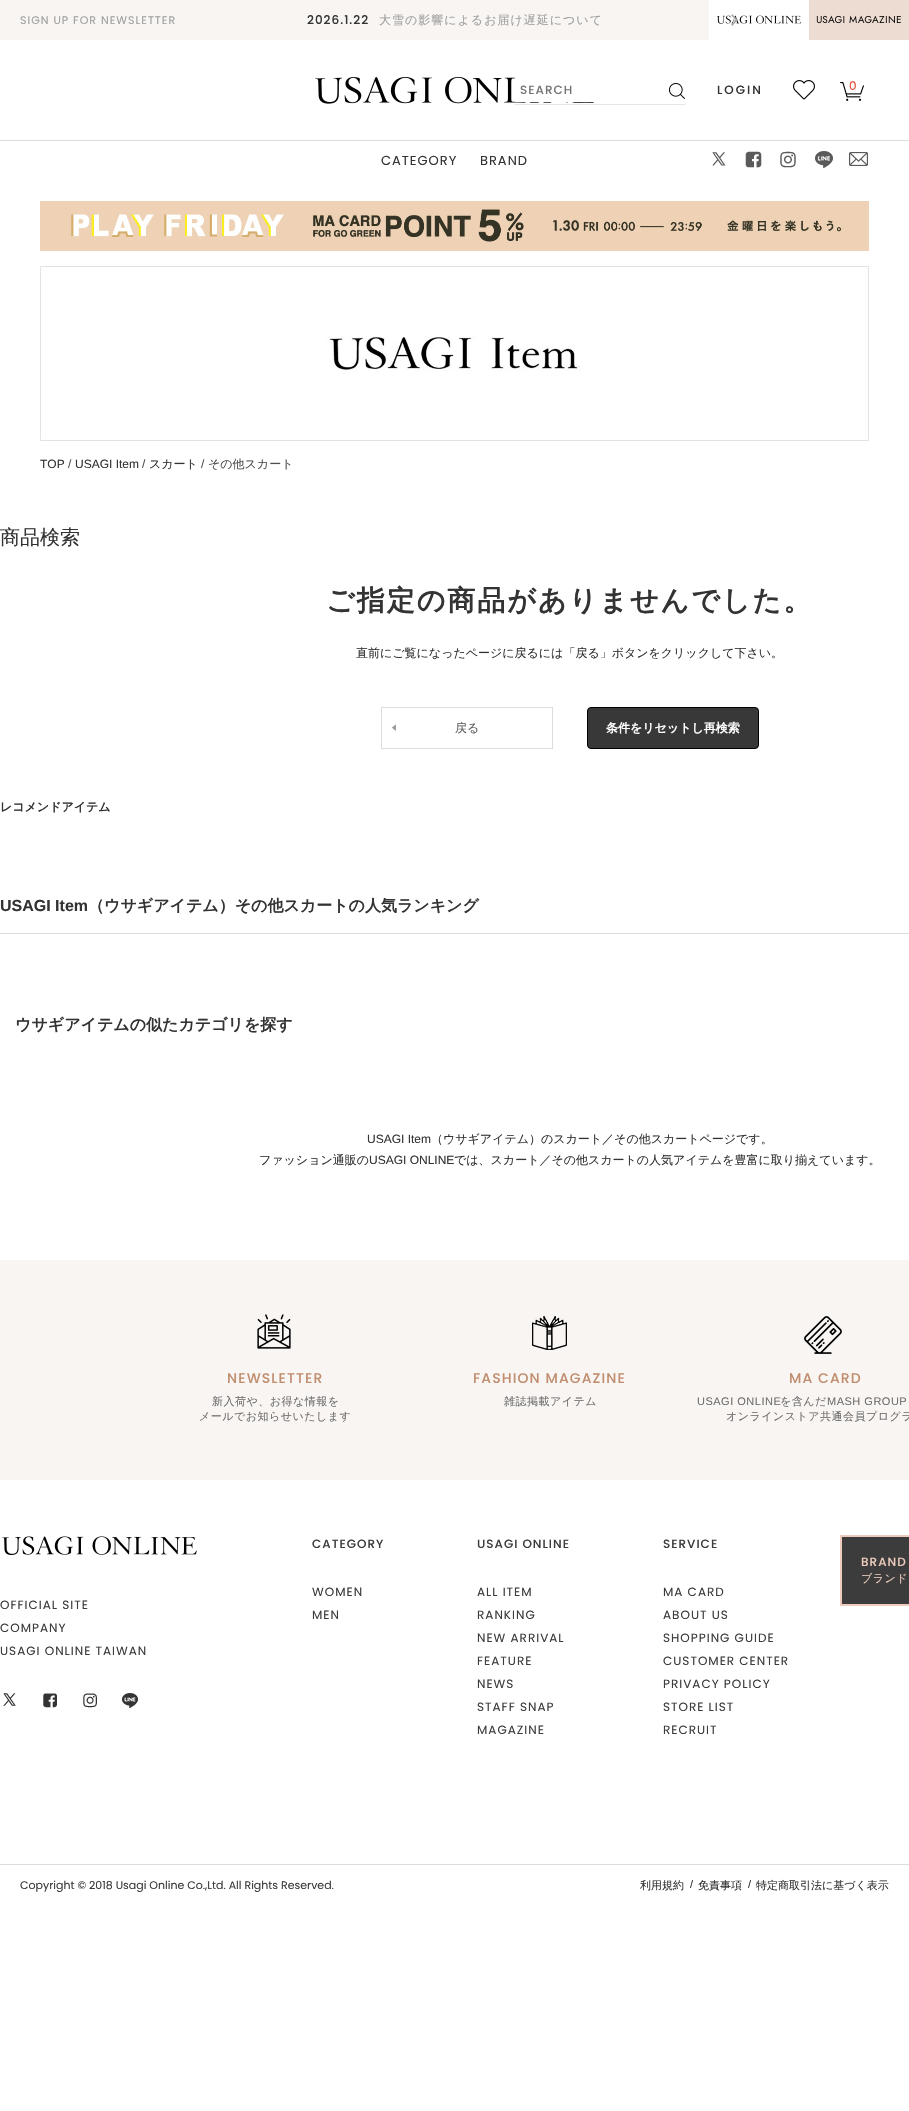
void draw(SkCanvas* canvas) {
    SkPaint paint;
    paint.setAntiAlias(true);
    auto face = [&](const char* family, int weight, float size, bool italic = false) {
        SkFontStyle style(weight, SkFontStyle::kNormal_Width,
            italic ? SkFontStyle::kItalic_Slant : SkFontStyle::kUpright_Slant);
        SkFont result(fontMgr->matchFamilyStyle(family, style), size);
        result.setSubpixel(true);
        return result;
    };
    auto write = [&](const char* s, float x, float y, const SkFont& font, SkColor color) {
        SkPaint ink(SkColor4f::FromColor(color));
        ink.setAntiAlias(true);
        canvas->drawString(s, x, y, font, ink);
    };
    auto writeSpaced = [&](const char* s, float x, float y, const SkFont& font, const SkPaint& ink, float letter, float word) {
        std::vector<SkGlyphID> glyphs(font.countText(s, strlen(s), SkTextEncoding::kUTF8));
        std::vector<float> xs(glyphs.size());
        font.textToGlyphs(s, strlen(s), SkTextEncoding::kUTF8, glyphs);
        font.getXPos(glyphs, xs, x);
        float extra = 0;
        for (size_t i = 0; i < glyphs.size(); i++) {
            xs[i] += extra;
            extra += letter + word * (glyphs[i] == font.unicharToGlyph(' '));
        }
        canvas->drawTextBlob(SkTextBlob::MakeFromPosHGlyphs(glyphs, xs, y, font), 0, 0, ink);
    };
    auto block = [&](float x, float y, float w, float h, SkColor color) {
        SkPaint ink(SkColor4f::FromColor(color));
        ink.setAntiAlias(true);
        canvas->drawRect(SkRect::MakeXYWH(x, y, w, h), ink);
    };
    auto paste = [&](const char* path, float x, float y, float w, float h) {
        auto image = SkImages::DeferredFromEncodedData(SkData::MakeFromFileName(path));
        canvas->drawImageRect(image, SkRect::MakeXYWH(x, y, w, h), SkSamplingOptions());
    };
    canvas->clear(SK_ColorWHITE);
    block(0, 0, 709, 40, SkColorSetRGB(248, 245, 243));
    auto kFont1 = face("Poppins", 400, 11);
    paint.setColor(SkColorSetRGB(160, 160, 160));
    writeSpaced("SIGN UP FOR NEWSLETTER", 20, 24, kFont1, paint, 1, 0);
    auto kFont2 = face("Poppins", 500, 12);
    paint.setColor(SkColorSetRGB(51, 51, 51));
    writeSpaced("2026.1.22", 307, 24, kFont2, paint, 1, 0);
    auto kFont3 = face("WenQuanYi Zen Hei", 500, 12);
    paint.setColor(SkColorSetRGB(160, 160, 160));
    writeSpaced("大雪の影響によるお届け遅延について", 379, 24, kFont3, paint, 1, 0);
    paste("pic2.png", 717, 15, 84, 9);
    paste("pic1.png", 731, 14, 7, 12);
    block(809, 0, 100, 40, SkColorSetRGB(236, 220, 210));
    paste("pic3.png", 816, 15, 85, 9);
    paste("pic4.png", 315, 76, 279, 28);
    block(515, 104, 170, 1, SkColorSetRGB(230, 230, 229));
    block(515, 78, 79, 24, SK_ColorWHITE);
    paint.setColor(SkColorSetRGB(117, 117, 117));
    writeSpaced("SEARCH", 520, 94, kFont2, paint, 1, 0);
    paste("pic5.png", 669, 83, 16, 16);
    paint.setColor(SkColorSetRGB(51, 51, 51));
    writeSpaced("LOGIN", 717, 94, kFont2, paint, 2, 0);
    paste("pic6.png", 793, 80, 22, 20);
    paste("pic7.png", 840, 82, 24, 19);
    auto kFont4 = face("Poppins", 400, 12);
    paint.setColor(SkColorSetRGB(228, 71, 46));
    writeSpaced("0", 849, 90, kFont4, paint, 2, 0);
    block(0, 140, 909, 1, SkColorSetRGB(220, 220, 220));
    auto kFont5 = face("Poppins", 400, 13);
    paint.setColor(SkColorSetRGB(51, 51, 51));
    writeSpaced("CATEGORY", 381, 165, kFont5, paint, 1, 0);
    writeSpaced("BRAND", 480, 165, kFont5, paint, 1, 0);
    paste("pic8.png", 712, 152, 14, 14);
    paste("pic9.png", 745, 151, 17, 17);
    paste("pic10.png", 780, 151, 16, 17);
    paste("pic11.png", 815, 151, 18, 17);
    paste("pic12.png", 849, 152, 19, 14);
    paste("pic13.png", 40, 201, 829, 50);
    paste("pic14.png", 40, 266, 829, 175);
    auto kFont6 = face("Liberation Sans", 400, 12);
    write("TOP", 40, 468, kFont6, SkColorSetRGB(51, 51, 51));
    write("/", 68, 468, kFont6, SkColorSetRGB(80, 79, 79));
    write("USAGI Item", 75, 468, kFont6, SkColorSetRGB(51, 51, 51));
    write("/", 142, 468, kFont6, SkColorSetRGB(80, 79, 79));
    write("スカート", 149, 468, kFont3, SkColorSetRGB(51, 51, 51));
    write("/", 201, 468, kFont6, SkColorSetRGB(80, 79, 79));
    write("その他スカート", 208, 468, kFont3, SkColorSetRGB(80, 79, 79));
    auto kFont7 = face("WenQuanYi Zen Hei", 500, 20);
    write("商品検索", 0, 544, kFont7, SkColorSetRGB(51, 51, 51));
    auto kFont8 = face("WenQuanYi Zen Hei", 700, 28);
    writeSpaced("ご指定の商品がありませんでした。", 326, 610, kFont8, paint, 2, 0);
    write("直前にご覧になったページに戻るには「戻る」ボタンをクリックして下さい。", 356, 657, kFont3, SkColorSetRGB(51, 51, 51));
    paste("pic15.png", 392, 724, 4, 7);
    paint.setStyle(SkPaint::kStroke_Style);
    paint.setStrokeWidth(1);
    paint.setColor(SkColorSetRGB(221, 221, 221));
    canvas->drawRect(SkRect::MakeXYWH(381.5f, 707.5f, 171, 41), paint);
    write("戻る", 455, 732, kFont3, SkColorSetRGB(94, 94, 94));
    paint.setStyle(SkPaint::kFill_Style);
    paint.setColor(SkColorSetRGB(56, 56, 56));
    canvas->drawRoundRect(SkRect::MakeXYWH(587.5f, 707.5f, 171, 41), 3.5f, 3.5f, paint);
    paint.setStyle(SkPaint::kStroke_Style);
    paint.setColor(SK_ColorBLACK);
    canvas->drawRoundRect(SkRect::MakeXYWH(587.5f, 707.5f, 171, 41), 3.5f, 3.5f, paint);
    auto kFont9 = face("WenQuanYi Zen Hei", 700, 12);
    write("条件をリセットし再検索", 606, 732, kFont9, SK_ColorWHITE);
    write("レコメンドアイテム", 0, 811, kFont9, SkColorSetRGB(51, 51, 51));
    block(0, 933, 909, 1, SkColorSetRGB(220, 220, 220));
    auto kFont10 = face("Liberation Sans", 700, 16);
    write("USAGI Item", 0, 911, kFont10, SkColorSetRGB(51, 51, 51));
    auto kFont11 = face("WenQuanYi Zen Hei", 700, 16);
    write("（ウサギアイテム）その他スカートの人気ランキング", 88, 911, kFont11, SkColorSetRGB(51, 51, 51));
    write("ウサギアイテムの似たカテゴリを探す", 15, 1030, kFont11, SkColorSetRGB(51, 51, 51));
    write("USAGI Item", 367, 1143, kFont6, SkColorSetRGB(51, 51, 51));
    write("（ウサギアイテム）のスカート／その他スカートページです。", 431, 1143, kFont3, SkColorSetRGB(51, 51, 51));
    write("ファッション通販の", 259, 1164, kFont3, SkColorSetRGB(51, 51, 51));
    write("USAGI ONLINE", 369, 1164, kFont6, SkColorSetRGB(51, 51, 51));
    write("では、スカート／その他スカートの人気アイテムを豊富に取り揃えています。", 454, 1164, kFont3, SkColorSetRGB(51, 51, 51));
    block(0, 1260, 909, 220, SkColorSetRGB(249, 245, 243));
    paste("pic16.png", 257, 1314, 34, 35);
    auto kFont12 = face("Poppins", 500, 14);
    paint.setStyle(SkPaint::kFill_Style);
    paint.setColor(SkColorSetRGB(193, 142, 112));
    writeSpaced("NEWSLETTER", 227, 1383, kFont12, paint, 1.1f, 0);
    auto kFont13 = face("WenQuanYi Zen Hei", 500, 11);
    paint.setColor(SkColorSetRGB(110, 110, 110));
    writeSpaced("新入荷や、お得な情報を", 212, 1405, kFont13, paint, 0.5f, 0);
    writeSpaced("メールでお知らせいたします", 199, 1420, kFont13, paint, 0.5f, 0);
    paste("pic17.png", 532, 1316, 35, 34);
    paint.setColor(SkColorSetRGB(193, 142, 112));
    writeSpaced("FASHION MAGAZINE", 473, 1383, kFont12, paint, 1.1f, 0);
    paint.setColor(SkColorSetRGB(110, 110, 110));
    writeSpaced("雑誌掲載アイテム", 504, 1405, kFont13, paint, 0.5f, 0);
    paste("pic18.png", 804, 1316, 38, 38);
    paint.setColor(SkColorSetRGB(193, 142, 112));
    writeSpaced("MA CARD", 789, 1383, kFont12, paint, 1.1f, 0);
    auto kFont14 = face("Liberation Sans", 400, 11);
    paint.setColor(SkColorSetRGB(110, 110, 110));
    writeSpaced("USAGI ONLINE", 697, 1405, kFont14, paint, 0.5f, 0);
    writeSpaced("を含んだ", 780, 1405, kFont13, paint, 0.5f, 0);
    writeSpaced("MASH GROUP", 827, 1405, kFont14, paint, 0.5f, 0);
    writeSpaced("オンラインストア共通会員プログラ", 726, 1420, kFont13, paint, 0.5f, 0);
    paint.setColor(SkColorSetRGB(59, 60, 60));
    writeSpaced("CATEGORY", 312, 1548, kFont2, paint, 1, 0);
    writeSpaced("WOMEN", 312, 1596, kFont4, paint, 1, 0);
    writeSpaced("MEN", 312, 1619, kFont4, paint, 1, 0);
    writeSpaced("USAGI ONLINE", 477, 1548, kFont2, paint, 1, 0);
    writeSpaced("ALL ITEM", 477, 1596, kFont4, paint, 1, 0);
    writeSpaced("RANKING", 477, 1619, kFont4, paint, 1, 0);
    writeSpaced("NEW ARRIVAL", 477, 1642, kFont4, paint, 1, 0);
    writeSpaced("FEATURE", 477, 1665, kFont4, paint, 1, 0);
    writeSpaced("NEWS", 477, 1688, kFont4, paint, 1, 0);
    writeSpaced("STAFF SNAP", 477, 1711, kFont4, paint, 1, 0);
    writeSpaced("MAGAZINE", 477, 1734, kFont4, paint, 1, 0);
    writeSpaced("SERVICE", 663, 1548, kFont2, paint, 1, 0);
    writeSpaced("MA CARD", 663, 1596, kFont4, paint, 1, 0);
    writeSpaced("ABOUT US", 663, 1619, kFont4, paint, 1, 0);
    writeSpaced("SHOPPING GUIDE", 663, 1642, kFont4, paint, 1, 0);
    writeSpaced("CUSTOMER CENTER", 663, 1665, kFont4, paint, 1, 0);
    writeSpaced("PRIVACY POLICY", 663, 1688, kFont4, paint, 1, 0);
    writeSpaced("STORE LIST", 663, 1711, kFont4, paint, 1, 0);
    writeSpaced("RECRUIT", 663, 1734, kFont4, paint, 1, 0);
    paint.setColor(SkColorSetRGB(60, 60, 60));
    canvas->drawRect(SkRect::MakeXYWH(841, 1536, 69, 69), paint);
    paint.setStyle(SkPaint::kStroke_Style);
    paint.setStrokeWidth(2);
    paint.setColor(SkColorSetRGB(238, 204, 189));
    canvas->drawRect(SkRect::MakeXYWH(841, 1536, 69, 69), paint);
    paint.setStyle(SkPaint::kFill_Style);
    writeSpaced("BRAND", 861, 1566, kFont2, paint, 1, 0);
    writeSpaced("ブランド", 861, 1582, kFont13, paint, 0.5f, 0);
    paste("pic19.png", 2, 1536, 195, 19);
    paint.setColor(SkColorSetRGB(59, 60, 60));
    writeSpaced("OFFICIAL SITE", 0, 1609, kFont4, paint, 1, 0);
    writeSpaced("COMPANY", 0, 1632, kFont4, paint, 1, 0);
    writeSpaced("USAGI ONLINE TAIWAN", 0, 1655, kFont4, paint, 1, 0);
    paste("pic20.png", 3, 1693, 13, 13);
    paste("pic21.png", 43, 1693, 14, 15);
    paste("pic22.png", 83, 1693, 14, 15);
    paste("pic23.png", 122, 1693, 16, 15);
    block(0, 1864, 909, 1, SkColorSetRGB(220, 220, 220));
    write("Copyright © 2018 Usagi Online Co.,Ltd. All Rights Reserved.", 20, 1889, kFont1, SkColorSetRGB(59, 60, 60));
    write("利用規約", 640, 1889, kFont13, SkColorSetRGB(51, 51, 51));
    write("/", 690, 1888, kFont14, SkColorSetRGB(51, 51, 51));
    write("免責事項", 698, 1889, kFont13, SkColorSetRGB(51, 51, 51));
    write("/", 748, 1888, kFont14, SkColorSetRGB(51, 51, 51));
    write("特定商取引法に基づく表示", 756, 1889, kFont13, SkColorSetRGB(51, 51, 51));
}
